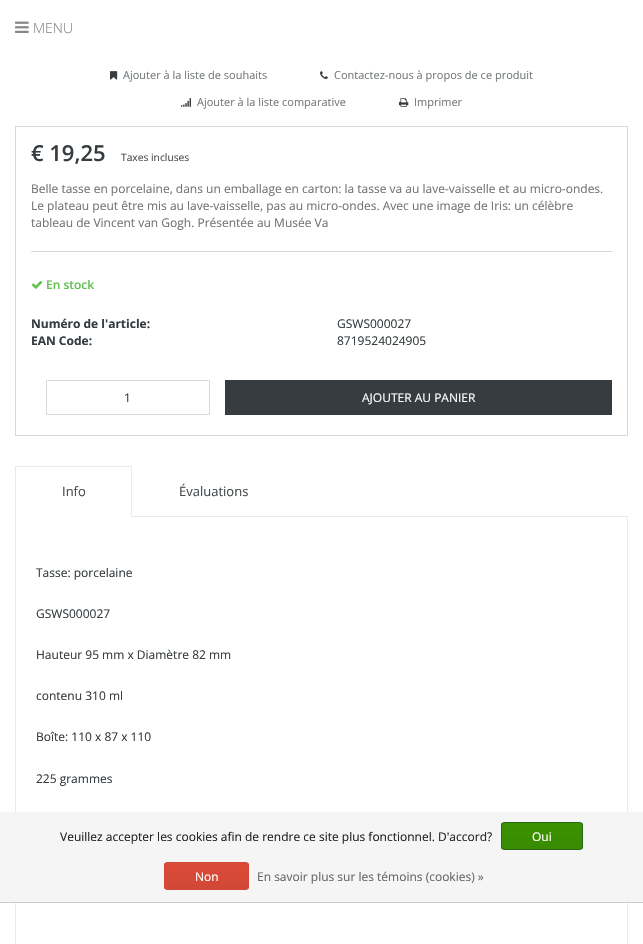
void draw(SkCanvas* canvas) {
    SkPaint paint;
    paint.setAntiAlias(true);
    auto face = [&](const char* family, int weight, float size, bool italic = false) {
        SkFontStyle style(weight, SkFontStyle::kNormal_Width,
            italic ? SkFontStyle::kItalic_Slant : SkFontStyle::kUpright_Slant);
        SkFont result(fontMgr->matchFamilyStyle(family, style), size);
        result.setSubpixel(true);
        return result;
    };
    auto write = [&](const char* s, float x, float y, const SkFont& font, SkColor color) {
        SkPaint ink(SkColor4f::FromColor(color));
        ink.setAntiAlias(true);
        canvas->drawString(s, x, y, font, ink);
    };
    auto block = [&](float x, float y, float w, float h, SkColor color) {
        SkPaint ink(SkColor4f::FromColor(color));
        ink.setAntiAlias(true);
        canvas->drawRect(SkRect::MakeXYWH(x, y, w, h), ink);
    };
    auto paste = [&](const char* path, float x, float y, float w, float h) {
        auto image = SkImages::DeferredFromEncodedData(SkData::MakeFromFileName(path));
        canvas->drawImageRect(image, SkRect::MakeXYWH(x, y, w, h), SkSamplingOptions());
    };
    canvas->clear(SK_ColorWHITE);
    paste("pic1.png", 15, 21, 14, 12);
    auto kFont1 = face("Open Sans", 300, 14);
    write("MENU", 33, 33, kFont1, SkColorSetRGB(136, 136, 136));
    paste("pic2.png", 110, 71, 8, 9);
    auto kFont2 = face("Open Sans", 400, 11);
    write("Ajouter à la liste de souhaits", 123, 79, kFont2, SkColorSetRGB(117, 122, 124));
    paste("pic3.png", 320, 71, 8, 8);
    write("Contactez-nous à propos de ce produit", 334, 79, kFont2, SkColorSetRGB(117, 122, 124));
    paste("pic4.png", 181, 98, 10, 9);
    write("Ajouter à la liste comparative", 197, 106, kFont2, SkColorSetRGB(117, 122, 124));
    paste("pic5.png", 399, 98, 10, 9);
    write("Imprimer", 414, 106, kFont2, SkColorSetRGB(117, 122, 124));
    paint.setStyle(SkPaint::kStroke_Style);
    paint.setStrokeWidth(1);
    paint.setColor(SkColorSetRGB(216, 216, 216));
    canvas->drawRect(SkRect::MakeXYWH(15.5f, 126.5f, 612, 309), paint);
    auto kFont3 = face("Open Sans", 600, 22);
    write("€ 19,25", 31, 161, kFont3, SkColorSetRGB(54, 60, 63));
    auto kFont4 = face("Open Sans", 400, 10.25f);
    write("Taxes incluses", 121, 161, kFont4, SkColorSetRGB(70, 75, 78));
    block(31, 251, 581, 1, SkColorSetRGB(216, 216, 216));
    auto kFont5 = face("Open Sans", 400, 12);
    write("Belle tasse en porcelaine, dans un emballage en carton: la tasse va au lave-vaisselle et au micro-ondes.", 31, 193, kFont5, SkColorSetRGB(116, 116, 116));
    write("Le plateau peut être mis au lave-vaisselle, pas au micro-ondes. Avec une image de Iris: un célèbre", 31, 210, kFont5, SkColorSetRGB(116, 116, 116));
    write("tableau de Vincent van Gogh. Présentée au Musée Va", 31, 227, kFont5, SkColorSetRGB(116, 116, 116));
    paste("pic6.png", 31, 281, 12, 8);
    auto kFont6 = face("Open Sans", 600, 12);
    write("En stock", 46, 289, kFont6, SkColorSetRGB(98, 193, 80));
    auto kFont7 = face("Open Sans", 700, 12);
    write("Numéro de l'article:", 31, 328, kFont7, SkColorSetRGB(54, 60, 63));
    write("GSWS000027", 337, 328, kFont5, SkColorSetRGB(54, 60, 63));
    write("EAN Code:", 31, 345, kFont7, SkColorSetRGB(54, 60, 63));
    write("8719524024905", 337, 345, kFont5, SkColorSetRGB(54, 60, 63));
    canvas->drawRoundRect(SkRect::MakeXYWH(46.5f, 380.5f, 163, 34), 0.5f, 0.5f, paint);
    write("1", 124, 402, kFont5, SkColorSetRGB(54, 60, 63));
    block(225, 380, 387, 35, SkColorSetRGB(54, 60, 63));
    write("AJOUTER AU PANIER", 362, 402, kFont5, SK_ColorWHITE);
    block(132, 516, 496, 1, SkColorSetRGB(234, 234, 234));
    block(15, 466, 117, 1, SkColorSetRGB(234, 234, 234));
    block(131, 466, 1, 51, SkColorSetRGB(234, 234, 234));
    block(15, 466, 1, 51, SkColorSetRGB(234, 234, 234));
    auto kFont8 = face("Open Sans", 400, 13);
    write("Info", 62, 496, kFont8, SkColorSetRGB(70, 75, 78));
    write("Évaluations", 179, 496, kFont8, SkColorSetRGB(70, 75, 78));
    block(627, 517, 1, 427, SkColorSetRGB(234, 234, 234));
    block(15, 517, 1, 427, SkColorSetRGB(234, 234, 234));
    write("Tasse: porcelaine", 36, 577, kFont5, SkColorSetRGB(54, 60, 63));
    write("GSWS000027", 36, 618, kFont5, SkColorSetRGB(54, 60, 63));
    write("Hauteur 95 mm x Diamètre 82 mm", 36, 659, kFont5, SkColorSetRGB(54, 60, 63));
    write("contenu 310 ml", 36, 700, kFont5, SkColorSetRGB(54, 60, 63));
    write("Boîte: 110 x 87 x 110", 36, 741, kFont5, SkColorSetRGB(54, 60, 63));
    write("225 grammes", 36, 783, kFont5, SkColorSetRGB(54, 60, 63));
    block(0, 812, 643, 90, SkColorSetRGB(245, 245, 245));
    block(0, 902, 643, 1, SkColorSetRGB(204, 204, 204));
    write("Veuillez accepter les cookies afin de rendre ce site plus fonctionnel. D'accord?", 60, 841, kFont5, SkColorSetRGB(34, 34, 34));
    canvas->save();
    canvas->clipPath(SkPathBuilder().moveTo(504, 822).lineTo(580, 822).cubicTo(581.5f, 822, 583, 823.5f, 583, 825).lineTo(583, 847).cubicTo(583, 848.5f, 581.5f, 850, 580, 850).lineTo(504, 850).cubicTo(502.5f, 850, 501, 848.5f, 501, 847).lineTo(501, 825).cubicTo(501, 823.5f, 502.5f, 822, 504, 822).close().detach(), true);
    paint.setStyle(SkPaint::kFill_Style);
    {
        const SkColor colors[] = {SkColorSetRGB(60, 147, 0), SkColorSetRGB(57, 138, 0)};
        const float stops[] = {0, 1};
        const SkPoint ends[] = {{542, 823}, {542, 849}};
        paint.setShader(SkGradientShader::MakeLinear(ends, colors, stops, 2, SkTileMode::kClamp));
        paint.setAlpha(255);
    }
    canvas->drawRect(SkRect::MakeXYWH(501, 823, 82, 26), paint);
    canvas->restore();
    paint.setStyle(SkPaint::kStroke_Style);
    paint.setShader(nullptr);
    paint.setColor(SkColorSetRGB(41, 105, 29));
    canvas->drawRoundRect(SkRect::MakeXYWH(501.5f, 822.5f, 81, 27), 2.5f, 2.5f, paint);
    write("Oui", 532, 841, kFont5, SK_ColorWHITE);
    canvas->save();
    canvas->clipPath(SkPathBuilder().moveTo(167, 862).lineTo(246, 862).cubicTo(247.5f, 862, 249, 863.5f, 249, 865).lineTo(249, 887).cubicTo(249, 888.5f, 247.5f, 890, 246, 890).lineTo(167, 890).cubicTo(165.5f, 890, 164, 888.5f, 164, 887).lineTo(164, 865).cubicTo(164, 863.5f, 165.5f, 862, 167, 862).close().detach(), true);
    paint.setStyle(SkPaint::kFill_Style);
    {
        const SkColor colors[] = {SkColorSetRGB(220, 74, 56), SkColorSetRGB(209, 72, 54)};
        const float stops[] = {0, 1};
        const SkPoint ends[] = {{207, 863}, {207, 889}};
        paint.setShader(SkGradientShader::MakeLinear(ends, colors, stops, 2, SkTileMode::kClamp));
        paint.setAlpha(255);
    }
    canvas->drawRect(SkRect::MakeXYWH(164, 863, 85, 26), paint);
    canvas->restore();
    paint.setStyle(SkPaint::kStroke_Style);
    paint.setShader(nullptr);
    paint.setColor(SkColorSetRGB(209, 72, 54));
    canvas->drawRoundRect(SkRect::MakeXYWH(164.5f, 862.5f, 84, 27), 2.5f, 2.5f, paint);
    write("Non", 195, 881, kFont5, SK_ColorWHITE);
    write("En savoir plus sur les témoins (cookies) »", 257, 881, kFont5, SkColorSetRGB(102, 102, 102));
}
